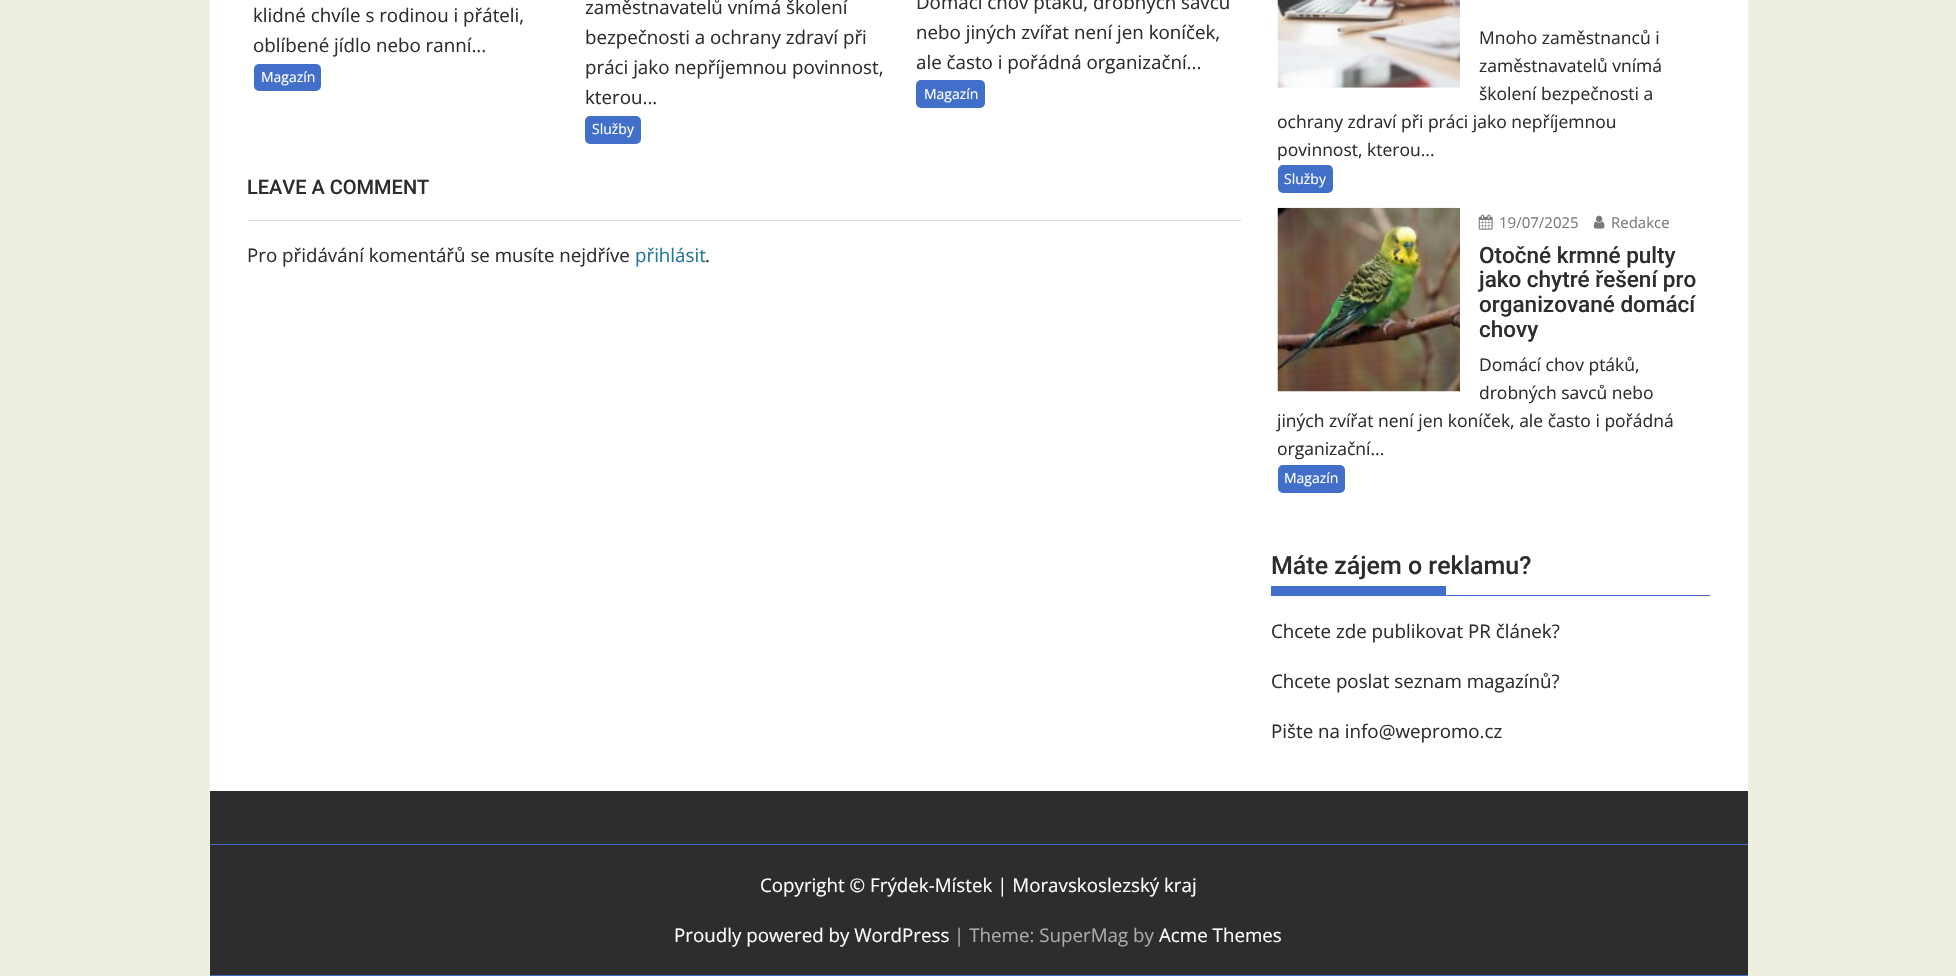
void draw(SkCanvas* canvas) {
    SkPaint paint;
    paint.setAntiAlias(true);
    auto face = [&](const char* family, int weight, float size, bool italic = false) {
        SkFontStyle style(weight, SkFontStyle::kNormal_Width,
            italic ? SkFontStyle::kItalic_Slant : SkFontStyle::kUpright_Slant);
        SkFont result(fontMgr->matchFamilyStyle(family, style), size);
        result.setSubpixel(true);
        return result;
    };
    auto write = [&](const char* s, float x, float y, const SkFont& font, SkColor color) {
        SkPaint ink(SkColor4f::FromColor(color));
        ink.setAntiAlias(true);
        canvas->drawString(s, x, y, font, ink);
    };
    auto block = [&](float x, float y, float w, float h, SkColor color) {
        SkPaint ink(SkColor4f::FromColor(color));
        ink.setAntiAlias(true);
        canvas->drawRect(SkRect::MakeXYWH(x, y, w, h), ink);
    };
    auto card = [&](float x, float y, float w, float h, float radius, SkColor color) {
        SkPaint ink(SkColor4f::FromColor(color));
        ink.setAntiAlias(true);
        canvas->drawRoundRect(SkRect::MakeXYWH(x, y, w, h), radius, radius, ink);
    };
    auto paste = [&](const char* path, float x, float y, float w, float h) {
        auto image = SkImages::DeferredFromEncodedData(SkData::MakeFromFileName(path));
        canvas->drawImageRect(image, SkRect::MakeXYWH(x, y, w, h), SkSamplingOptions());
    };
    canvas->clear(SkColorSetRGB(238, 238, 225));
    block(210, 0, 1538, 791, SK_ColorWHITE);
    auto kFont1 = face("Open Sans", 400, 18.75f);
    write("klidné chvíle s rodinou i přáteli,", 253, 22, kFont1, SkColorSetRGB(45, 45, 45));
    write("oblíbené jídlo nebo ranní...", 253, 52, kFont1, SkColorSetRGB(45, 45, 45));
    card(254, 64, 67, 27, 5, SkColorSetRGB(66, 111, 201));
    auto kFont2 = face("Open Sans", 400, 14);
    write("Magazín", 261, 82, kFont2, SK_ColorWHITE);
    write("zaměstnavatelů vnímá školení", 585, 14, kFont1, SkColorSetRGB(45, 45, 45));
    write("bezpečnosti a ochrany zdraví při", 585, 44, kFont1, SkColorSetRGB(45, 45, 45));
    write("práci jako nepříjemnou povinnost,", 585, 74, kFont1, SkColorSetRGB(45, 45, 45));
    write("kterou...", 585, 104, kFont1, SkColorSetRGB(45, 45, 45));
    card(585, 116, 56, 28, 5, SkColorSetRGB(66, 111, 201));
    write("Služby", 592, 134, kFont2, SK_ColorWHITE);
    write("Domácí chov ptáků, drobných savců", 916, 9, kFont1, SkColorSetRGB(45, 45, 45));
    write("nebo jiných zvířat není jen koníček,", 916, 39, kFont1, SkColorSetRGB(45, 45, 45));
    write("ale často i pořádná organizační...", 916, 69, kFont1, SkColorSetRGB(45, 45, 45));
    card(916, 80, 69, 28, 5, SkColorSetRGB(66, 111, 201));
    write("Magazín", 924, 99, kFont2, SK_ColorWHITE);
    block(248, 220, 993, 1, SkColorSetRGB(217, 217, 217));
    auto kFont3 = face("Roboto", 500, 20);
    write("LEAVE A COMMENT", 247, 194, kFont3, SkColorSetRGB(45, 45, 45));
    write("Pro přidávání komentářů se musíte nejdříve", 247, 262, kFont1, SkColorSetRGB(45, 45, 45));
    write("přihlásit", 635, 262, kFont1, SkColorSetRGB(33, 117, 155));
    write(".", 705, 262, kFont1, SkColorSetRGB(45, 45, 45));
    paste("pic1.png", 1277, 0, 183, 88);
    auto kFont4 = face("Open Sans", 400, 17.5f);
    write("Mnoho zaměstnanců i", 1479, 44, kFont4, SkColorSetRGB(45, 45, 45));
    write("zaměstnavatelů vnímá", 1479, 72, kFont4, SkColorSetRGB(45, 45, 45));
    write("školení bezpečnosti a", 1479, 100, kFont4, SkColorSetRGB(45, 45, 45));
    write("ochrany zdraví při práci jako nepříjemnou", 1277, 128, kFont4, SkColorSetRGB(45, 45, 45));
    write("povinnost, kterou...", 1277, 156, kFont4, SkColorSetRGB(45, 45, 45));
    card(1278, 165, 55, 28, 5, SkColorSetRGB(66, 111, 201));
    write("Služby", 1284, 184, kFont2, SK_ColorWHITE);
    paste("pic2.png", 1277, 207, 183, 185);
    paste("pic3.png", 1478, 214, 15, 16);
    auto kFont5 = face("Open Sans", 400, 15);
    write("19/07/2025", 1499, 228, kFont5, SkColorSetRGB(122, 122, 122));
    paste("pic4.png", 1593, 215, 12, 14);
    write("Redakce", 1611, 228, kFont5, SkColorSetRGB(122, 122, 122));
    auto kFont6 = face("Roboto", 500, 22.5f);
    write("Otočné krmné pulty", 1479, 263, kFont6, SkColorSetRGB(45, 45, 45));
    write("jako chytré řešení pro", 1479, 287, kFont6, SkColorSetRGB(45, 45, 45));
    write("organizované domácí", 1479, 312, kFont6, SkColorSetRGB(45, 45, 45));
    write("chovy", 1479, 337, kFont6, SkColorSetRGB(45, 45, 45));
    write("Domácí chov ptáků,", 1479, 371, kFont4, SkColorSetRGB(45, 45, 45));
    write("drobných savců nebo", 1479, 399, kFont4, SkColorSetRGB(45, 45, 45));
    write("jiných zvířat není jen koníček, ale často i pořádná", 1277, 427, kFont4, SkColorSetRGB(45, 45, 45));
    write("organizační...", 1277, 455, kFont4, SkColorSetRGB(45, 45, 45));
    card(1278, 465, 67, 28, 5, SkColorSetRGB(66, 111, 201));
    write("Magazín", 1284, 483, kFont2, SK_ColorWHITE);
    block(1271, 595, 439, 1, SkColorSetRGB(66, 111, 201));
    auto kFont7 = face("Roboto", 500, 25);
    write("Máte zájem o reklamu?", 1271, 574, kFont7, SkColorSetRGB(45, 45, 45));
    block(1271, 586, 175, 9, SkColorSetRGB(66, 111, 201));
    write("Chcete zde publikovat PR článek?", 1271, 638, kFont1, SkColorSetRGB(45, 45, 45));
    write("Chcete poslat seznam magazínů?", 1271, 688, kFont1, SkColorSetRGB(45, 45, 45));
    write("Pište na info@wepromo.cz", 1271, 738, kFont1, SkColorSetRGB(45, 45, 45));
    block(210, 791, 1538, 184, SkColorSetRGB(45, 45, 45));
    block(210, 975, 1538, 1, SkColorSetRGB(66, 111, 201));
    block(210, 844, 1538, 1, SkColorSetRGB(66, 111, 201));
    write("Copyright © Frýdek-Místek | Moravskoslezský kraj", 760, 892, kFont1, SK_ColorWHITE);
    write("Proudly powered by WordPress", 674, 942, kFont1, SK_ColorWHITE);
    write("| Theme: SuperMag by", 954, 942, kFont1, SkColorSetRGB(171, 171, 171));
    write("Acme Themes", 1159, 942, kFont1, SK_ColorWHITE);
}
